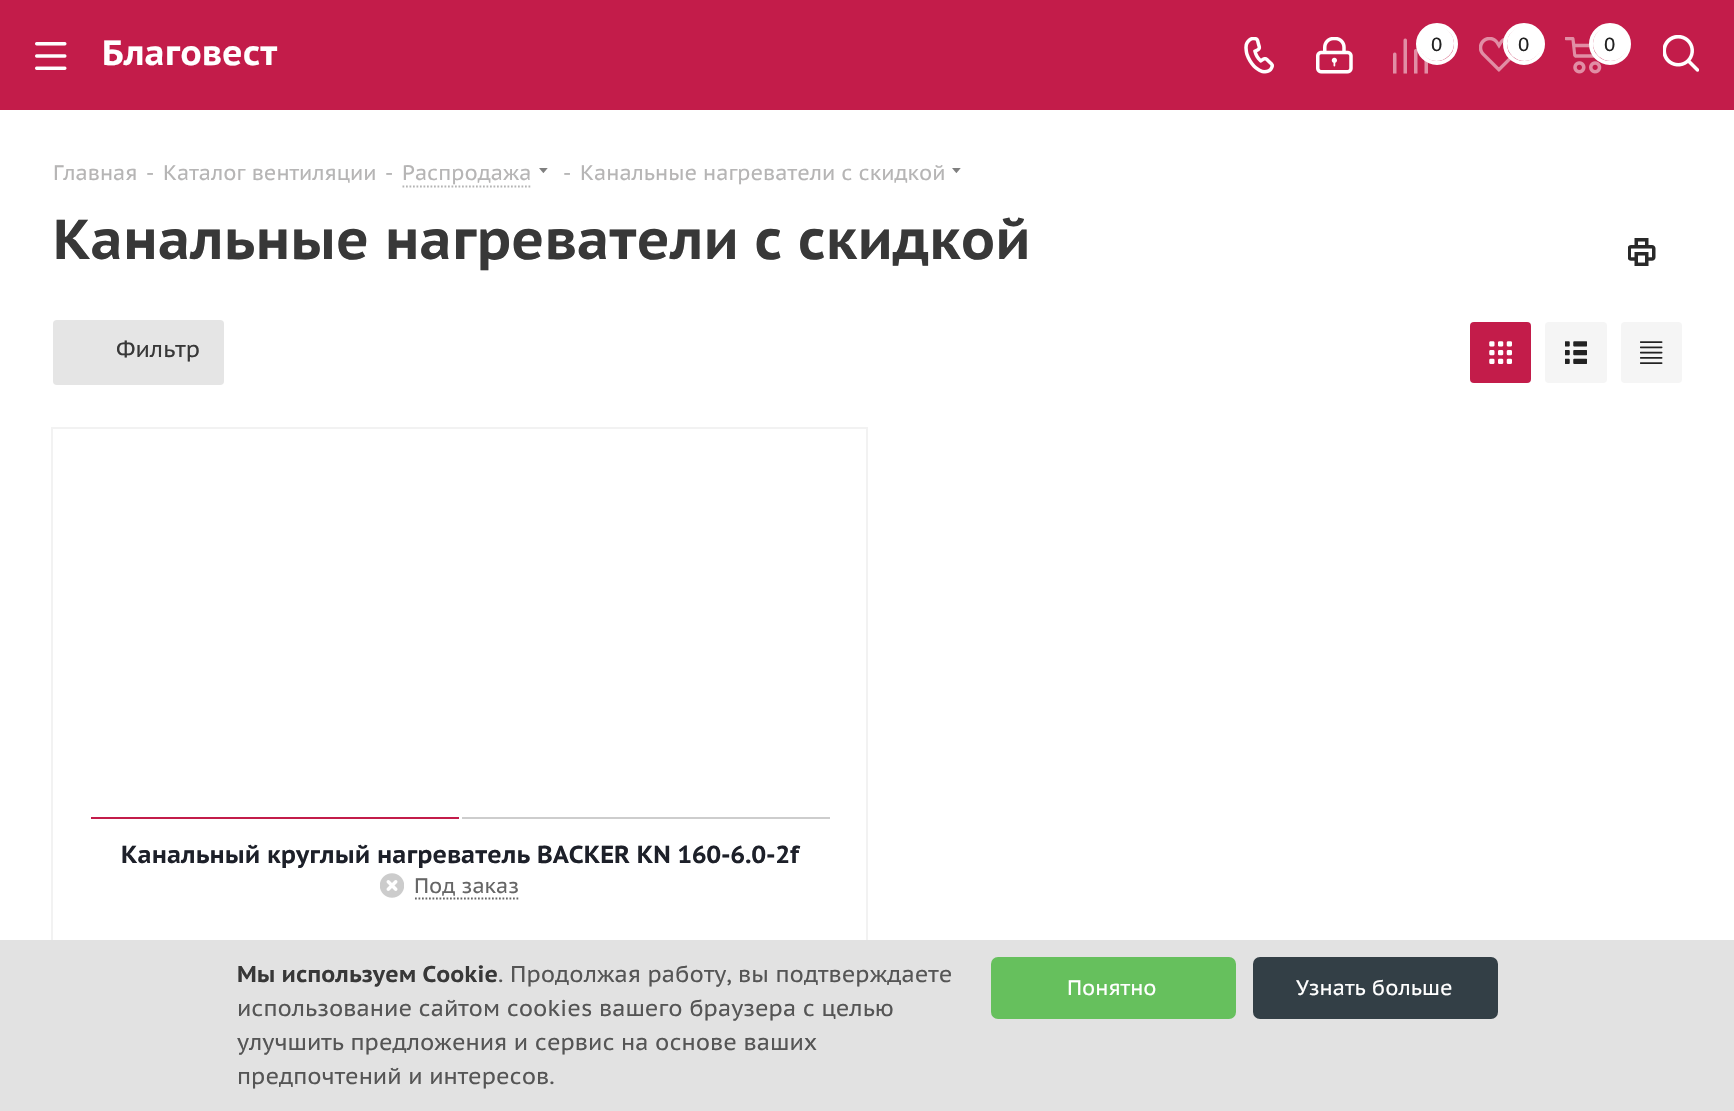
void draw(SkCanvas* canvas) {
    SkPaint paint;
    paint.setAntiAlias(true);
    auto face = [&](const char* family, int weight, float size, bool italic = false) {
        SkFontStyle style(weight, SkFontStyle::kNormal_Width,
            italic ? SkFontStyle::kItalic_Slant : SkFontStyle::kUpright_Slant);
        SkFont result(fontMgr->matchFamilyStyle(family, style), size);
        result.setSubpixel(true);
        return result;
    };
    auto write = [&](const char* s, float x, float y, const SkFont& font, SkColor color) {
        SkPaint ink(SkColor4f::FromColor(color));
        ink.setAntiAlias(true);
        canvas->drawString(s, x, y, font, ink);
    };
    auto block = [&](float x, float y, float w, float h, SkColor color) {
        SkPaint ink(SkColor4f::FromColor(color));
        ink.setAntiAlias(true);
        canvas->drawRect(SkRect::MakeXYWH(x, y, w, h), ink);
    };
    auto card = [&](float x, float y, float w, float h, float radius, SkColor color) {
        SkPaint ink(SkColor4f::FromColor(color));
        ink.setAntiAlias(true);
        canvas->drawRoundRect(SkRect::MakeXYWH(x, y, w, h), radius, radius, ink);
    };
    auto paste = [&](const char* path, float x, float y, float w, float h) {
        auto image = SkImages::DeferredFromEncodedData(SkData::MakeFromFileName(path));
        canvas->drawImageRect(image, SkRect::MakeXYWH(x, y, w, h), SkSamplingOptions());
    };
    canvas->clear(SK_ColorWHITE);
    block(0, 0, 1734, 110, SkColorSetRGB(195, 28, 74));
    paste("pic1.png", 35, 42, 32, 28);
    auto kFont1 = face("PT Sans Caption", 700, 35);
    write("Благовест", 102, 65, kFont1, SK_ColorWHITE);
    paste("pic2.png", 1244, 37, 30, 37);
    paste("pic3.png", 1316, 37, 37, 37);
    paste("pic4.png", 1393, 38, 35, 36);
    paint.setStyle(SkPaint::kStroke_Style);
    paint.setStrokeWidth(4);
    paint.setColor(SK_ColorWHITE);
    canvas->drawCircle(1437, 44, 19, paint);
    paint.setStyle(SkPaint::kFill_Style);
    canvas->drawCircle(1436.5f, 43.5f, 17.5f, paint);
    auto kFont2 = face("PT Sans Caption", 400, 19);
    write("0", 1431, 51, kFont2, SkColorSetRGB(34, 34, 34));
    paste("pic5.png", 1479, 37, 35, 35);
    paint.setStyle(SkPaint::kStroke_Style);
    canvas->drawCircle(1524, 44, 19, paint);
    paint.setStyle(SkPaint::kFill_Style);
    canvas->drawCircle(1524.5f, 43.5f, 17.5f, paint);
    write("0", 1518, 51, kFont2, SkColorSetRGB(34, 34, 34));
    paste("pic6.png", 1565, 37, 37, 37);
    paint.setStyle(SkPaint::kStroke_Style);
    canvas->drawCircle(1610, 44, 19, paint);
    paint.setStyle(SkPaint::kFill_Style);
    canvas->drawCircle(1610.5f, 43.5f, 17.5f, paint);
    write("0", 1604, 51, kFont2, SkColorSetRGB(34, 34, 34));
    paste("pic7.png", 1663, 35, 36, 37);
    auto kFont3 = face("PT Sans Caption", 400, 21);
    write("Главная", 53, 180, kFont3, SkColorSetRGB(182, 181, 181));
    write("-", 146, 180, kFont3, SkColorSetRGB(182, 181, 181));
    write("Каталог вентиляции", 163, 180, kFont3, SkColorSetRGB(182, 181, 181));
    write("-", 385, 180, kFont3, SkColorSetRGB(182, 181, 181));
    write("Распродажа", 402, 180, kFont3, SkColorSetRGB(182, 181, 181));
    paint.setStyle(SkPaint::kStroke_Style);
    paint.setStrokeWidth(1.8f);
    paint.setColor(SkColorSetRGB(180, 180, 180));
    paint.setPathEffect(SkDashPathEffect::Make({{1.75f, 1.75f}}, 0));
    canvas->drawPath(SkPathBuilder().moveTo(402.5f, 186.5f).lineTo(532, 186.5f).detach(), paint);
    paint.setPathEffect(nullptr);
    paste("pic8.png", 539, 168, 9, 5);
    write("-", 563, 180, kFont3, SkColorSetRGB(182, 181, 181));
    write("Канальные нагреватели с скидкой", 580, 180, kFont3, SkColorSetRGB(182, 181, 181));
    paste("pic8.png", 952, 168, 9, 5);
    auto kFont4 = face("PT Sans Caption", 700, 56);
    write("Канальные нагреватели с скидкой", 53, 259, kFont4, SkColorSetRGB(56, 56, 56));
    paste("pic9.png", 1628, 238, 28, 28);
    card(53, 320, 171, 65, 4, SkColorSetRGB(229, 229, 229));
    auto kFont5 = face("PT Sans Caption", 400, 22.75f);
    write("Фильтр", 116, 357, kFont5, SkColorSetRGB(56, 56, 56));
    card(1470, 322, 61, 61, 4, SkColorSetRGB(195, 28, 74));
    paste("pic10.png", 1489, 341, 23, 23);
    card(1545, 322, 62, 61, 4, SkColorSetRGB(245, 245, 245));
    paste("pic11.png", 1565, 341, 22, 23);
    card(1621, 322, 61, 61, 4, SkColorSetRGB(245, 245, 245));
    paste("pic12.png", 1640, 341, 23, 23);
    paint.setStrokeWidth(2);
    paint.setColor(SkColorSetRGB(242, 242, 242));
    canvas->drawRect(SkRect::MakeXYWH(52, 428, 815, 590), paint);
    block(91, 817, 368, 2, SkColorSetRGB(195, 28, 74));
    block(462, 817, 368, 2, SkColorSetRGB(205, 205, 205));
    auto kFont6 = face("PT Sans Caption", 700, 24.5f);
    write("Канальный круглый нагреватель BACKER KN 160-6.0-2f", 121, 863, kFont6, SkColorSetRGB(29, 32, 41));
    paste("pic13.png", 380, 873, 24, 25);
    paint.setStrokeWidth(1.8f);
    paint.setColor(SkColorSetRGB(102, 102, 102));
    paint.setPathEffect(SkDashPathEffect::Make({{1.75f, 1.75f}}, 0));
    canvas->drawPath(SkPathBuilder().moveTo(415, 898.5f).lineTo(520, 898.5f).detach(), paint);
    paint.setPathEffect(nullptr);
    write("Под заказ", 414, 893, kFont3, SkColorSetRGB(102, 102, 102));
    block(0, 940, 1734, 171, SkColorSetRGB(226, 226, 226));
    auto kFont7 = face("PT Sans Caption", 700, 22.75f);
    write("Мы используем Cookie", 237, 982, kFont7, SkColorSetRGB(56, 56, 56));
    write(". Продолжая работу, вы подтверждаете", 498, 982, kFont5, SkColorSetRGB(85, 85, 85));
    write("использование сайтом cookies вашего браузера с целью", 237, 1016, kFont5, SkColorSetRGB(85, 85, 85));
    write("улучшить предложения и сервис на основе ваших", 237, 1050, kFont5, SkColorSetRGB(85, 85, 85));
    write("предпочтений и интересов.", 237, 1084, kFont5, SkColorSetRGB(85, 85, 85));
    paint.setStyle(SkPaint::kFill_Style);
    paint.setColor(SkColorSetRGB(102, 192, 93));
    canvas->drawRoundRect(SkRect::MakeXYWH(992, 958, 243, 60), 6, 6, paint);
    paint.setStyle(SkPaint::kStroke_Style);
    paint.setStrokeWidth(2);
    canvas->drawRoundRect(SkRect::MakeXYWH(992, 958, 243, 60), 6, 6, paint);
    write("Понятно", 1067, 995, kFont3, SK_ColorWHITE);
    paint.setStyle(SkPaint::kFill_Style);
    paint.setColor(SkColorSetRGB(51, 63, 70));
    canvas->drawRoundRect(SkRect::MakeXYWH(1254, 958, 243, 60), 6, 6, paint);
    paint.setStyle(SkPaint::kStroke_Style);
    canvas->drawRoundRect(SkRect::MakeXYWH(1254, 958, 243, 60), 6, 6, paint);
    write("Узнать больше", 1296, 995, kFont3, SK_ColorWHITE);
}
